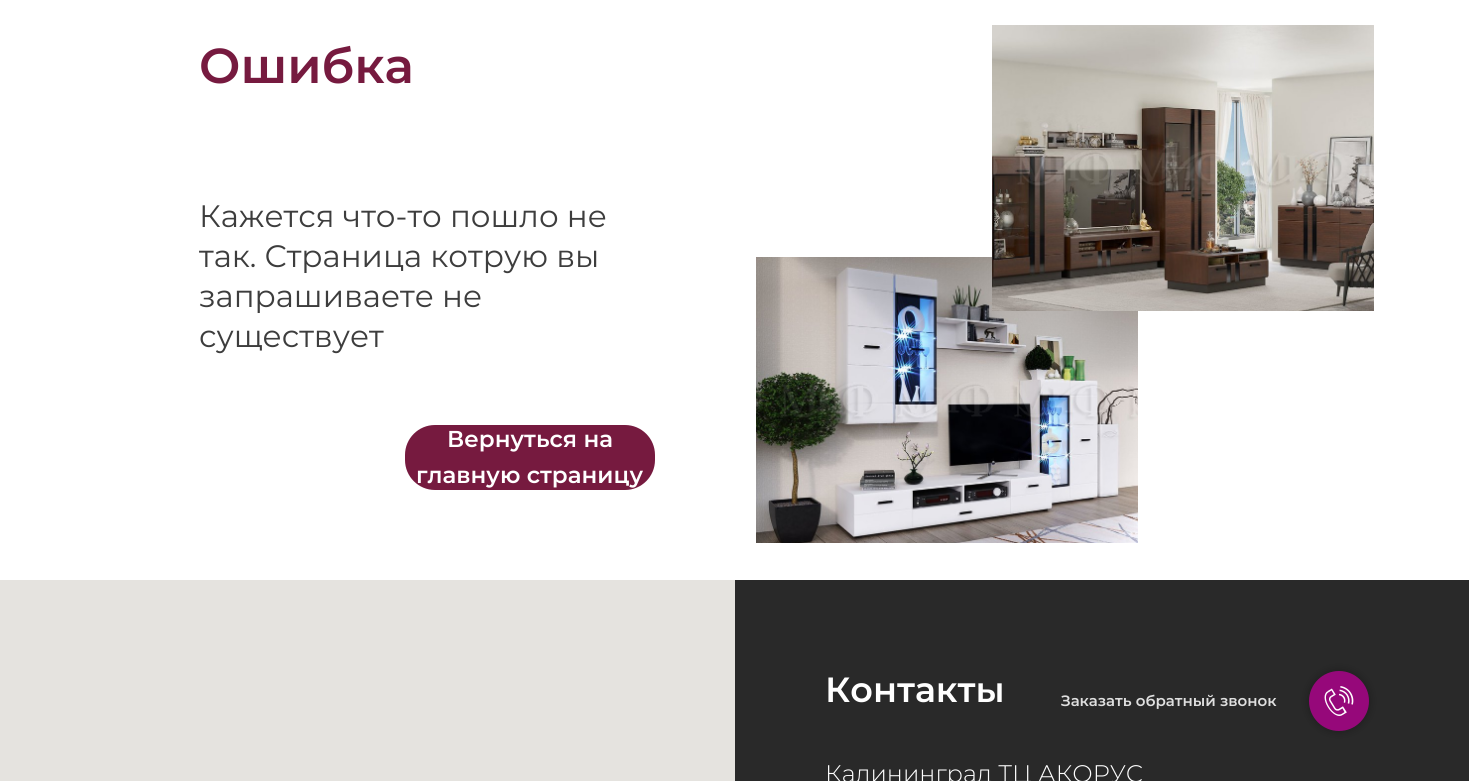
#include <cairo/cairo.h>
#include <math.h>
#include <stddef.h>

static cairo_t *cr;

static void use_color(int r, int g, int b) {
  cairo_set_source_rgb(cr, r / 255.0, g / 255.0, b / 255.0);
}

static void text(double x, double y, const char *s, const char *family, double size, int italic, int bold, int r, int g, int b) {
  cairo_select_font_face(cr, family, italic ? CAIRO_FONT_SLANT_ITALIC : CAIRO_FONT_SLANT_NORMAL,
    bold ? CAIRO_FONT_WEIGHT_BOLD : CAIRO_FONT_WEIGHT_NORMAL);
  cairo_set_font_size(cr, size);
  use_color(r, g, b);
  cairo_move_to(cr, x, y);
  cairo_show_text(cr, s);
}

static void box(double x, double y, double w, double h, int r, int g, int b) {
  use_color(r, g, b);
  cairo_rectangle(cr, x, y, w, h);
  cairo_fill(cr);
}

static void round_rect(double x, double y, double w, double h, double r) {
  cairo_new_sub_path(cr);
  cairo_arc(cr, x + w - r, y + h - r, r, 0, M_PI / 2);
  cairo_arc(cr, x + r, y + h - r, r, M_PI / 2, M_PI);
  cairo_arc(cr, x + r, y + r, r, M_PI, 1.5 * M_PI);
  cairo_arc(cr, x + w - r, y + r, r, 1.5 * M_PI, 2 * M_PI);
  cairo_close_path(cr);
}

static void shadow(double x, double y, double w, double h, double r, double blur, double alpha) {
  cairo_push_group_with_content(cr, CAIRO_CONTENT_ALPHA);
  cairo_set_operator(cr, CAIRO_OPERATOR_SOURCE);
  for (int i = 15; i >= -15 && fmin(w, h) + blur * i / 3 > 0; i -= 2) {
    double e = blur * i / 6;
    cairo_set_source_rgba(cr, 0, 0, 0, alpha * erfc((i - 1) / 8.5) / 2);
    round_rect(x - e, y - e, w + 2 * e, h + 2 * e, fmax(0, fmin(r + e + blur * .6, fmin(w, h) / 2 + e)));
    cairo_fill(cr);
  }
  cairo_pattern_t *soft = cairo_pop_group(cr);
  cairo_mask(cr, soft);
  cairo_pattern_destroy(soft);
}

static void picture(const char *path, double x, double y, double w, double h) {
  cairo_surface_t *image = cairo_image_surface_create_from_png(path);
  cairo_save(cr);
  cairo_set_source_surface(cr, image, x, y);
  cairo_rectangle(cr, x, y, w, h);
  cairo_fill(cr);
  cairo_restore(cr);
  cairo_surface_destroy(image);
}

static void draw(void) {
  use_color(255, 255, 255);
  cairo_paint(cr);
  picture("img_02.png", 756, 257, 382, 286);
  picture("img_01.png", 992, 25, 382, 286);
  use_color(118, 26, 63);
  round_rect(405, 425, 250, 65, 30);
  cairo_fill(cr);
  box(735, 580, 734, 201, 41, 41, 41);
  box(0, 580, 735, 201, 229, 227, 223);
  use_color(0, 0, 0);
  shadow(1309, 671, 60, 60, 30, 5, 0.3);
  use_color(150, 8, 122);
  cairo_arc(cr, 1339, 701, 30, 0, 2 * M_PI);
  cairo_fill(cr);
  picture("img_03.png", 1324, 686, 30, 30);
  text(199, 83, "Ошибка", "Montserrat SemiBold", 49, 0, 0, 118, 26, 63);
  text(199, 227, "Кажется что-то пошло не", "Montserrat", 31, 0, 0, 61, 61, 61);
  text(199, 267, "так. Страница котрую вы", "Montserrat", 31, 0, 0, 61, 61, 61);
  text(199, 307, "запрашиваете не", "Montserrat", 31, 0, 0, 61, 61, 61);
  text(199, 347, "существует", "Montserrat", 31, 0, 0, 61, 61, 61);
  text(447, 447, "Вернуться на", "Montserrat SemiBold", 23, 0, 0, 255, 255, 255);
  text(416, 483, "главную страницу", "Montserrat SemiBold", 23, 0, 0, 255, 255, 255);
  text(825, 702, "Контакты", "Montserrat SemiBold", 35, 0, 0, 255, 255, 255);
  text(825, 782, "Калининград ТЦ АКОРУС", "Montserrat Light", 24, 0, 0, 255, 255, 255);
  text(1061, 706, "Заказать обратный звонок", "Montserrat SemiBold", 15, 0, 0, 223, 223, 223);
}

int main(void) {
  cairo_surface_t *surface = cairo_image_surface_create(CAIRO_FORMAT_RGB24, 1469, 781);
  cr = cairo_create(surface);
  cairo_font_options_t *options = cairo_font_options_create();
  cairo_font_options_set_hint_metrics(options, CAIRO_HINT_METRICS_OFF);
  cairo_font_options_set_hint_style(options, CAIRO_HINT_STYLE_NONE);
  cairo_set_font_options(cr, options);
  cairo_set_miter_limit(cr, 4);
  draw();
  cairo_surface_write_to_png(surface, "out.png");
  cairo_font_options_destroy(options);
  cairo_destroy(cr);
  cairo_surface_destroy(surface);
  return 0;
}
